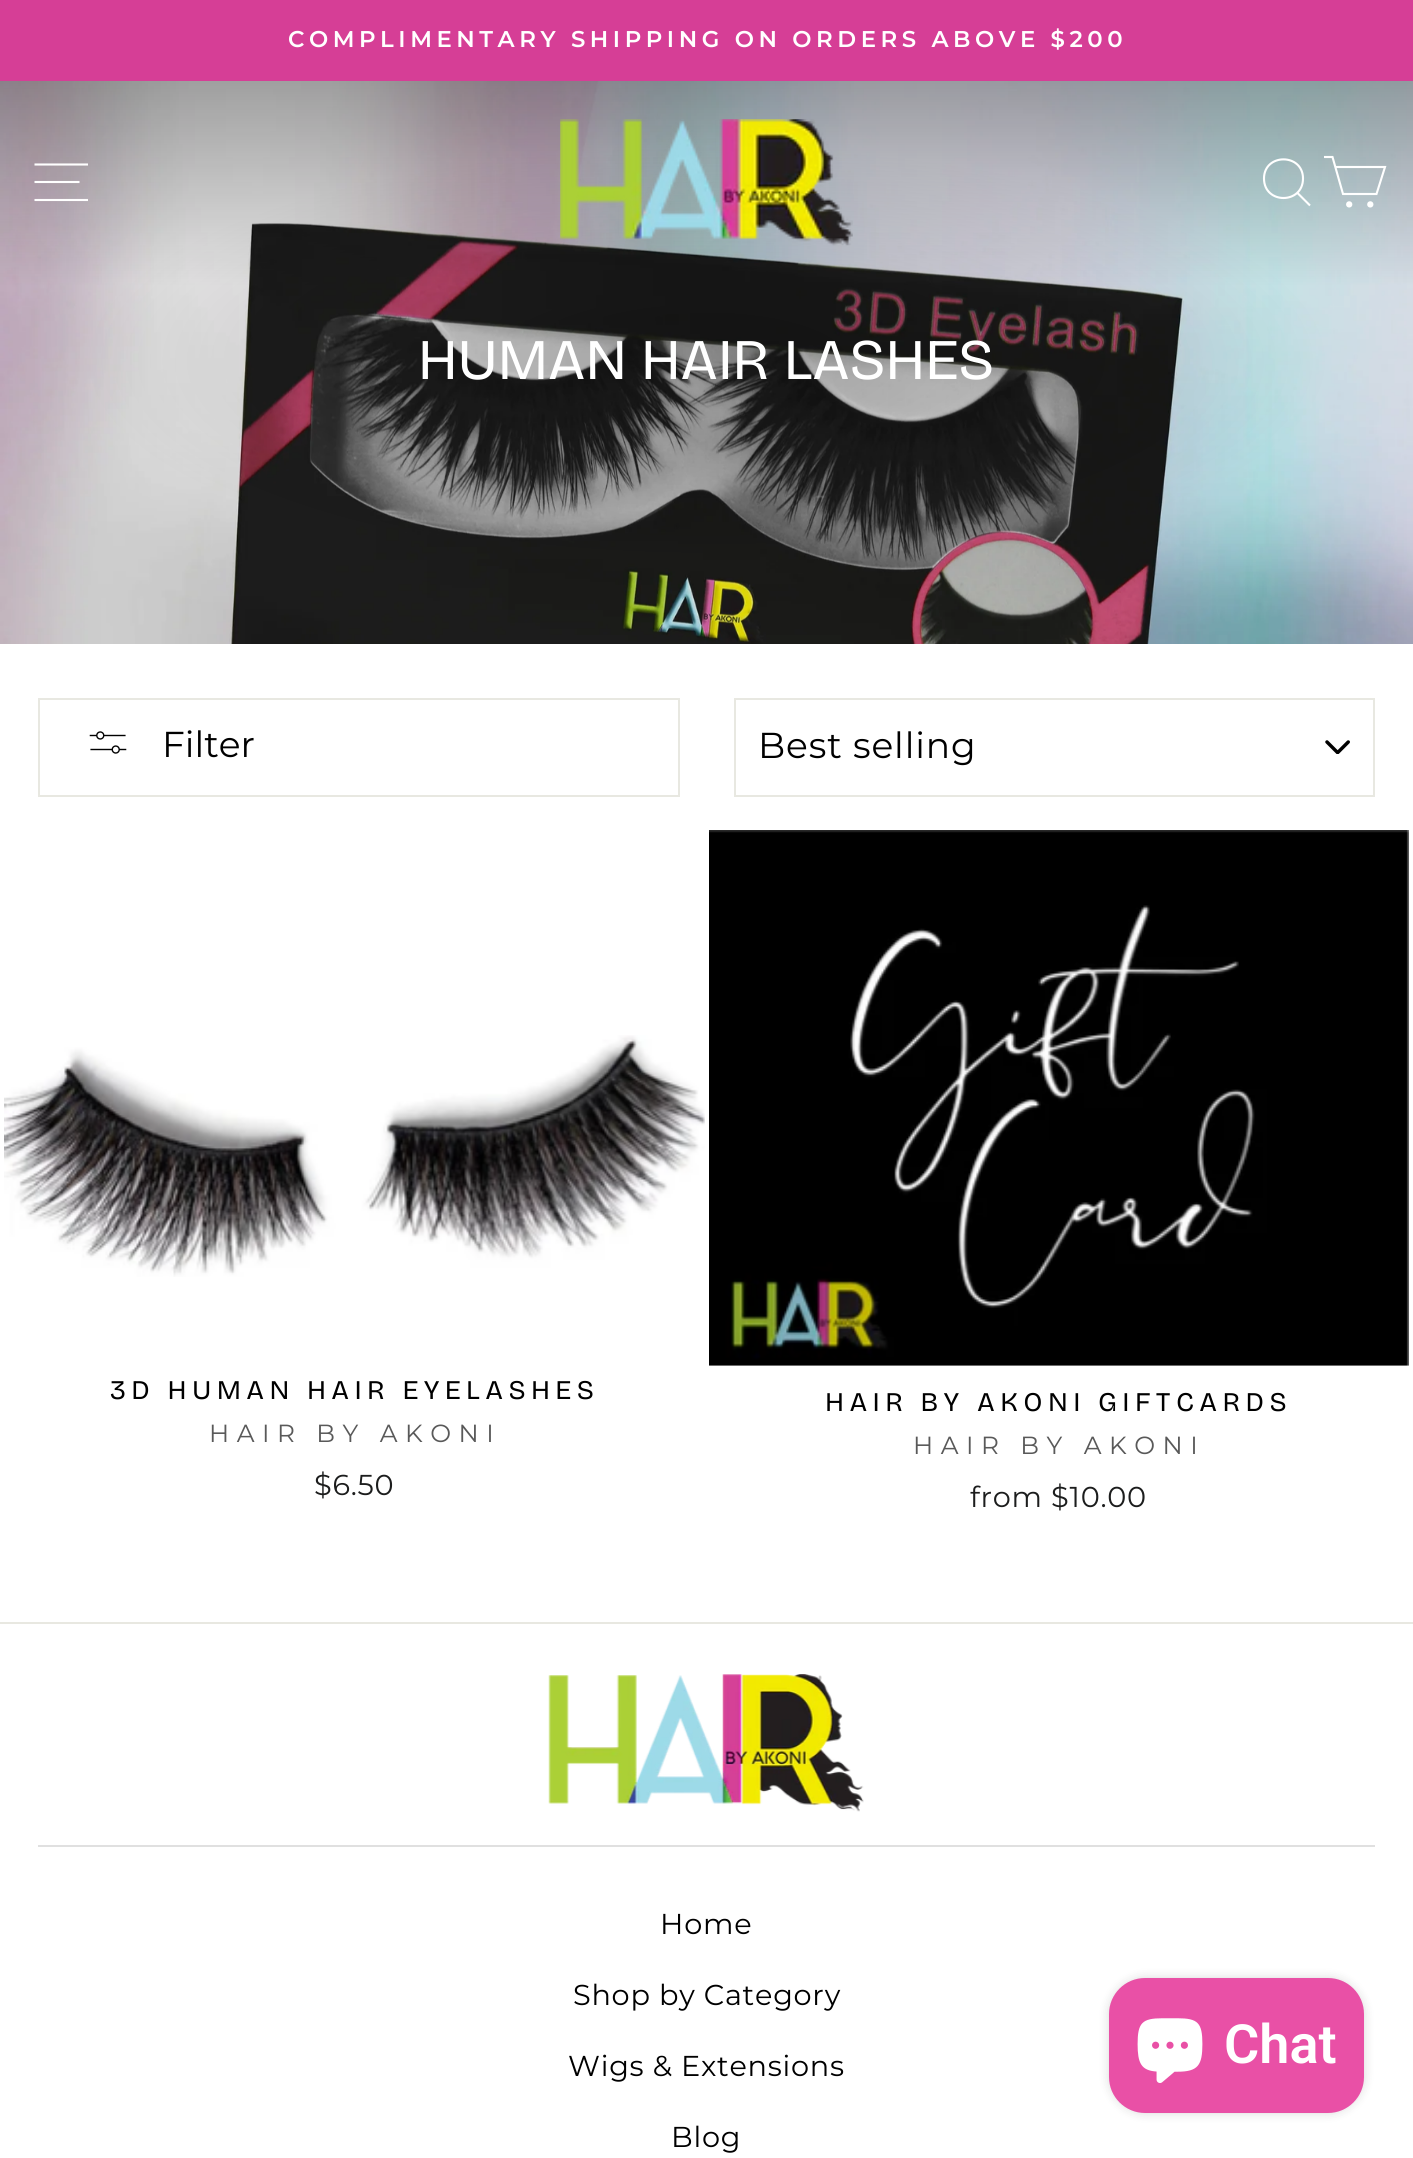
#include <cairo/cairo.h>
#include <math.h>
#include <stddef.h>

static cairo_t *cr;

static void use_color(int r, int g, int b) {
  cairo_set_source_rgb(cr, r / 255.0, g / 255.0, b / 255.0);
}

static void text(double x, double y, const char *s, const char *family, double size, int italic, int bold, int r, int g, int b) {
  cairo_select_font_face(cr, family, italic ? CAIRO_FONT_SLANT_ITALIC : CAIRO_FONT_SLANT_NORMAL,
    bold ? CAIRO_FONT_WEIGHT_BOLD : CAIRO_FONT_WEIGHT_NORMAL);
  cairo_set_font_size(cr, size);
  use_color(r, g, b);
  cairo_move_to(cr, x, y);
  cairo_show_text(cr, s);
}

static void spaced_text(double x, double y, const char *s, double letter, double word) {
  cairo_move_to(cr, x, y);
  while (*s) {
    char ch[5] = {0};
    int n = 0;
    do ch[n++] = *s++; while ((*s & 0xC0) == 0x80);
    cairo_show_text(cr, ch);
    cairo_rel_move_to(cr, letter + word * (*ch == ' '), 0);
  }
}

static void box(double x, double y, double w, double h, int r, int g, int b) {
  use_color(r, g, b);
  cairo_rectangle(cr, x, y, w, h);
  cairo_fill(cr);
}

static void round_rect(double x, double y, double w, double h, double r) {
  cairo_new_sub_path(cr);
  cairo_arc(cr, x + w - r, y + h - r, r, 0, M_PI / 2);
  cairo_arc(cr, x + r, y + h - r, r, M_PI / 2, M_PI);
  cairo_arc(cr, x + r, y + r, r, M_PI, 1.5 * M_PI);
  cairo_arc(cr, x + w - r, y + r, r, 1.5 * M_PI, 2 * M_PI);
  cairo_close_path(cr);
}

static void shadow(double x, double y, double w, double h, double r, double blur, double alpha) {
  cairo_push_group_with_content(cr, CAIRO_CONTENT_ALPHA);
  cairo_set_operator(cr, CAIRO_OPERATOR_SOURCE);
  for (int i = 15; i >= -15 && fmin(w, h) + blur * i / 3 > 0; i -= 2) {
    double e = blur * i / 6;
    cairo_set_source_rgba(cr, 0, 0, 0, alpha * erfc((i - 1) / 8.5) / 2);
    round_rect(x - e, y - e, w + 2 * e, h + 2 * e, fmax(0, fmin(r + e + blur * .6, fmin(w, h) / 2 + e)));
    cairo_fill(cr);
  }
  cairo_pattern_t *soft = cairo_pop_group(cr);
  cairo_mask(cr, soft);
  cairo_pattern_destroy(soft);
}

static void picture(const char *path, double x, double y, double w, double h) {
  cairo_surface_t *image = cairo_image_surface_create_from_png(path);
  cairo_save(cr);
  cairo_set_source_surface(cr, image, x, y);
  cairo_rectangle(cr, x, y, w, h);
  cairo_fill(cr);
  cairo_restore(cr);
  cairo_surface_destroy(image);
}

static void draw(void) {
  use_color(255, 255, 255);
  cairo_paint(cr);
  box(0, 0, 1413, 81, 214, 62, 150);
  picture("img_02.png", 0, 81, 1413, 563);
  cairo_new_path(cr);
  cairo_move_to(cr, 34.5, 164.5);
  cairo_line_to(cr, 88, 164.5);
  cairo_move_to(cr, 34.5, 182);
  cairo_line_to(cr, 79.5, 182);
  cairo_move_to(cr, 34.5, 200);
  cairo_line_to(cr, 88, 200);
  use_color(255, 255, 255);
  cairo_set_line_width(cr, 2.1);
  cairo_stroke(cr);
  picture("img_01.png", 560, 119, 293, 127);
  cairo_new_path(cr);
  cairo_move_to(cr, 1303, 178.5);
  cairo_curve_to(cr, 1303, 204.5, 1264, 204.5, 1264, 178.5);
  cairo_curve_to(cr, 1264, 153, 1303, 153, 1303, 178.5);
  cairo_close_path(cr);
  cairo_move_to(cr, 1310, 205.5);
  cairo_line_to(cr, 1297.5, 193);
  cairo_stroke(cr);
  cairo_new_path(cr);
  cairo_move_to(cr, 1335.5, 167);
  cairo_line_to(cr, 1385, 167);
  cairo_line_to(cr, 1376.5, 194);
  cairo_line_to(cr, 1343, 194);
  cairo_line_to(cr, 1332.5, 157);
  cairo_line_to(cr, 1324, 157);
  cairo_stroke(cr);
  cairo_arc(cr, 1349.2, 204.4, 2.1, 0, 2 * M_PI);
  cairo_fill_preserve(cr);
  cairo_stroke(cr);
  cairo_arc(cr, 1370.3, 204.4, 2.1, 0, 2 * M_PI);
  cairo_fill_preserve(cr);
  cairo_stroke(cr);
  cairo_rectangle(cr, 39, 699, 640, 97);
  use_color(232, 232, 225);
  cairo_set_line_width(cr, 2);
  cairo_stroke(cr);
  picture("img_03.png", 89, 731, 38, 23);
  picture("img_04.png", 1325, 740, 25, 14);
  cairo_rectangle(cr, 735, 699, 639, 97);
  cairo_stroke(cr);
  picture("img_05.png", 4, 1035, 701, 242);
  picture("img_06.png", 709, 830, 700, 536);
  box(0, 1622, 1413, 2, 232, 232, 225);
  picture("img_07.png", 548, 1674, 316, 138);
  box(38, 1845, 1337, 2, 224, 224, 224);
  use_color(0, 0, 0);
  shadow(1109, 1978, 255, 135, 36, 5.5, 0.15);
  use_color(233, 80, 166);
  round_rect(1109, 1978, 255, 135, 36);
  cairo_fill(cr);
  picture("img_08.png", 1137, 2018, 66, 65);
  cairo_select_font_face(cr, "Montserrat SemiBold", CAIRO_FONT_SLANT_NORMAL, CAIRO_FONT_WEIGHT_NORMAL);
  cairo_set_font_size(cr, 22.8);
  use_color(255, 255, 255);
  spaced_text(288, 47, "COMPLIMENTARY SHIPPING ON ORDERS ABOVE $200", 4.55, 0);
  text(418, 379, "HUMAN HAIR LASHES", "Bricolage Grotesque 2", 57.4, 0, 0, 255, 255, 255);
  text(162, 757, "Filter", "Montserrat", 36, 0, 0, 0, 0, 0);
  spaced_text(758, 758, "Best selling", 0.9, 0);
  cairo_select_font_face(cr, "Bricolage Grotesque", CAIRO_FONT_SLANT_NORMAL, CAIRO_FONT_WEIGHT_NORMAL);
  cairo_set_font_size(cr, 27);
  spaced_text(110, 1399, "3D HUMAN HAIR EYELASHES", 5.4, 0);
  cairo_select_font_face(cr, "Montserrat", CAIRO_FONT_SLANT_NORMAL, CAIRO_FONT_WEIGHT_NORMAL);
  cairo_set_font_size(cr, 24.8);
  use_color(89, 89, 89);
  spaced_text(209, 1442, "HAIR BY AKONI", 7.5, 0);
  cairo_set_font_size(cr, 28.75);
  use_color(28, 29, 29);
  spaced_text(314, 1495, "$6.50", 0.75, 0);
  cairo_select_font_face(cr, "Bricolage Grotesque", CAIRO_FONT_SLANT_NORMAL, CAIRO_FONT_WEIGHT_NORMAL);
  cairo_set_font_size(cr, 27);
  use_color(0, 0, 0);
  spaced_text(825, 1411, "HAIR BY AKONI GIFTCARDS", 5.4, 0);
  cairo_select_font_face(cr, "Montserrat", CAIRO_FONT_SLANT_NORMAL, CAIRO_FONT_WEIGHT_NORMAL);
  cairo_set_font_size(cr, 24.8);
  use_color(89, 89, 89);
  spaced_text(913, 1454, "HAIR BY AKONI", 7.5, 0);
  cairo_set_font_size(cr, 28.75);
  use_color(28, 29, 29);
  spaced_text(970, 1507, "from $10.00", 0.75, 0);
  use_color(0, 0, 0);
  spaced_text(660, 1934, "Home", 0.75, 0);
  spaced_text(573, 2005, "Shop by Category", 0.75, 0);
  spaced_text(568, 2076, "Wigs & Extensions", 0.75, 0);
  spaced_text(671, 2147, "Blog", 0.75, 0);
  text(1224, 2063, "Chat", "Roboto SemiBold", 54, 0, 0, 255, 255, 255);
}

int main(void) {
  cairo_surface_t *surface = cairo_image_surface_create(CAIRO_FORMAT_RGB24, 1413, 2158);
  cr = cairo_create(surface);
  cairo_font_options_t *options = cairo_font_options_create();
  cairo_font_options_set_hint_metrics(options, CAIRO_HINT_METRICS_OFF);
  cairo_font_options_set_hint_style(options, CAIRO_HINT_STYLE_NONE);
  cairo_set_font_options(cr, options);
  cairo_set_miter_limit(cr, 4);
  draw();
  cairo_surface_write_to_png(surface, "out.png");
  cairo_font_options_destroy(options);
  cairo_destroy(cr);
  cairo_surface_destroy(surface);
  return 0;
}
